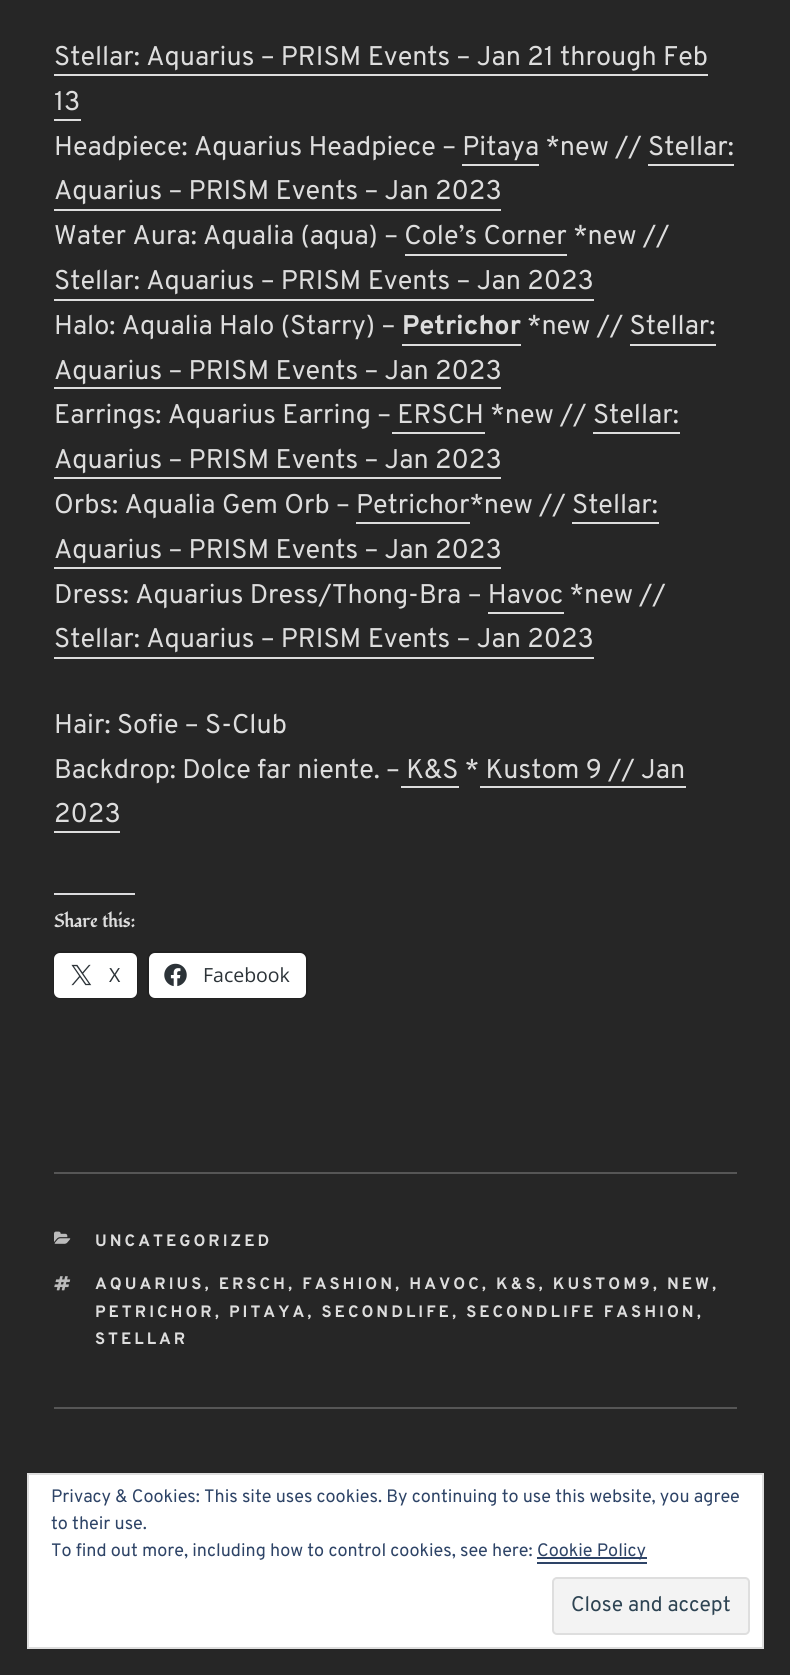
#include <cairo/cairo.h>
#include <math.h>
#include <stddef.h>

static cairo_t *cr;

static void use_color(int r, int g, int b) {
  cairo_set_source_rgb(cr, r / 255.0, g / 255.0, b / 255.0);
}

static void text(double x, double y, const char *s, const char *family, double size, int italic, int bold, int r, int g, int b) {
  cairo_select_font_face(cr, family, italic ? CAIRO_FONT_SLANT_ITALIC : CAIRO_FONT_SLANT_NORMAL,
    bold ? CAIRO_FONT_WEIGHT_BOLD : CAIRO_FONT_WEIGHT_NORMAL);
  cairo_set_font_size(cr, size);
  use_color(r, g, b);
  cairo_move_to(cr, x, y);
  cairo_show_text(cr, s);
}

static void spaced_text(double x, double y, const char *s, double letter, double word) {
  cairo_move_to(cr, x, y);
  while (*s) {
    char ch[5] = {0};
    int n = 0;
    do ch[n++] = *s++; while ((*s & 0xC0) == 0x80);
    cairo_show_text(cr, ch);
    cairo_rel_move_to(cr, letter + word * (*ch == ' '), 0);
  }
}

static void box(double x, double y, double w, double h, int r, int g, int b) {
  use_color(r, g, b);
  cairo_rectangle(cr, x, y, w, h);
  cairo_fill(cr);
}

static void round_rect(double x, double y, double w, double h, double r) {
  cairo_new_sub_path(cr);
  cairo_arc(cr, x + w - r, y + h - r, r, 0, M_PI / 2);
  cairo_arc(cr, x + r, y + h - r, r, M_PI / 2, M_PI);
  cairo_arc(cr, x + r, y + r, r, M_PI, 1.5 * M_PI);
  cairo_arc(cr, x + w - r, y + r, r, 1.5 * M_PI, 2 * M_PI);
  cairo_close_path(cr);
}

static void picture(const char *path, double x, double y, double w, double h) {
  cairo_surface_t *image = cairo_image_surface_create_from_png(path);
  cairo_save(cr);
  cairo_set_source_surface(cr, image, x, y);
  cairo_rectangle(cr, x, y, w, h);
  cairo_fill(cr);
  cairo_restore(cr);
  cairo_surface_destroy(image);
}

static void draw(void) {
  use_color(38, 38, 38);
  cairo_paint(cr);
  box(54, 74, 654, 2, 221, 221, 221);
  box(54, 119, 27, 2, 221, 221, 221);
  box(462, 164, 77, 2, 221, 221, 221);
  box(648, 164, 86, 2, 221, 221, 221);
  box(54, 209, 447, 2, 221, 221, 221);
  box(405, 254, 162, 2, 221, 221, 221);
  box(54, 299, 540, 2, 221, 221, 221);
  box(402, 344, 119, 2, 221, 221, 221);
  box(630, 344, 86, 2, 221, 221, 221);
  box(54, 387, 447, 2, 221, 221, 221);
  box(392, 432, 93, 2, 221, 221, 221);
  box(593, 432, 87, 2, 221, 221, 221);
  box(54, 477, 447, 2, 221, 221, 221);
  box(356, 522, 114, 2, 221, 221, 221);
  box(572, 522, 87, 2, 221, 221, 221);
  box(54, 567, 447, 2, 221, 221, 221);
  box(488, 612, 76, 2, 221, 221, 221);
  box(54, 657, 540, 2, 221, 221, 221);
  box(401, 786, 58, 2, 221, 221, 221);
  box(480, 786, 206, 2, 221, 221, 221);
  box(54, 831, 66, 2, 221, 221, 221);
  box(54, 893, 81, 2, 220, 220, 222);
  round_rect(54, 952, 83, 46, 7);
  use_color(33, 33, 33);
  cairo_stroke(cr);
  use_color(255, 255, 255);
  round_rect(54, 953, 83, 45, 6);
  cairo_fill(cr);
  picture("img_01.png", 71, 964, 21, 22);
  round_rect(148, 952, 159, 46, 7);
  use_color(33, 33, 33);
  cairo_stroke(cr);
  use_color(255, 255, 255);
  round_rect(149, 953, 157, 45, 6);
  cairo_fill(cr);
  picture("img_02.png", 164, 963, 23, 24);
  box(54, 1172, 683, 2, 86, 86, 86);
  box(54, 1407, 683, 2, 86, 86, 86);
  picture("img_03.png", 54, 1231, 17, 13);
  picture("img_04.png", 54, 1276, 17, 15);
  use_color(255, 255, 255);
  cairo_rectangle(cr, 28, 1474, 735, 174);
  cairo_fill_preserve(cr);
  use_color(222, 222, 222);
  cairo_stroke(cr);
  box(537, 1562, 110, 2, 46, 68, 103);
  box(537, 1557, 110, 2, 46, 68, 103);
  use_color(243, 243, 243);
  round_rect(553, 1578, 196, 56, 4);
  cairo_fill_preserve(cr);
  use_color(222, 222, 222);
  cairo_stroke(cr);
  text(54, 65, "Stellar: Aquarius – PRISM Events – Jan 21 through Feb", "Overpass", 27, 0, 0, 221, 221, 221);
  text(54, 110, "13", "Overpass", 27, 0, 0, 221, 221, 221);
  text(54, 155, "Headpiece: Aquarius Headpiece – Pitaya *new // Stellar:", "Overpass", 27, 0, 0, 221, 221, 221);
  text(54, 199, "Aquarius – PRISM Events – Jan 2023", "Overpass", 27, 0, 0, 221, 221, 221);
  text(54, 244, "Water Aura: Aqualia (aqua) – Cole’s Corner *new //", "Overpass", 27, 0, 0, 221, 221, 221);
  text(54, 289, "Stellar: Aquarius – PRISM Events – Jan 2023", "Overpass", 27, 0, 0, 221, 221, 221);
  text(54, 334, "Halo: Aqualia Halo (Starry) –", "Overpass", 27, 0, 0, 221, 221, 221);
  text(402, 334, "Petrichor", "Overpass", 27, 0, 1, 221, 221, 221);
  text(527, 334, "*new // Stellar:", "Overpass", 27, 0, 0, 221, 221, 221);
  text(54, 379, "Aquarius – PRISM Events – Jan 2023", "Overpass", 27, 0, 0, 221, 221, 221);
  text(54, 423, "Earrings: Aquarius Earring – ERSCH *new // Stellar:", "Overpass", 27, 0, 0, 221, 221, 221);
  text(54, 468, "Aquarius – PRISM Events – Jan 2023", "Overpass", 27, 0, 0, 221, 221, 221);
  text(54, 513, "Orbs: Aqualia Gem Orb – Petrichor*new // Stellar:", "Overpass", 27, 0, 0, 221, 221, 221);
  text(54, 558, "Aquarius – PRISM Events – Jan 2023", "Overpass", 27, 0, 0, 221, 221, 221);
  text(54, 603, "Dress: Aquarius Dress/Thong-Bra – Havoc *new //", "Overpass", 27, 0, 0, 221, 221, 221);
  text(54, 647, "Stellar: Aquarius – PRISM Events – Jan 2023", "Overpass", 27, 0, 0, 221, 221, 221);
  text(54, 733, "Hair: Sofie – S-Club", "Overpass", 27, 0, 0, 221, 221, 221);
  text(54, 778, "Backdrop: Dolce far niente. – K&S * Kustom 9 // Jan", "Overpass", 27, 0, 0, 221, 221, 221);
  text(54, 822, "2023", "Overpass", 27, 0, 0, 221, 221, 221);
  text(54, 927, "Share this:", "Fondamento", 18, 0, 1, 221, 221, 221);
  text(109, 982, "X", "Open Sans", 19.5, 0, 0, 44, 51, 56);
  text(203, 982, "Facebook", "Open Sans", 19.5, 0, 0, 44, 51, 56);
  cairo_select_font_face(cr, "Overpass", CAIRO_FONT_SLANT_NORMAL, CAIRO_FONT_WEIGHT_BOLD);
  cairo_set_font_size(cr, 16.5);
  use_color(221, 221, 221);
  spaced_text(95, 1246, "UNCATEGORIZED", 3, 0);
  spaced_text(95, 1289, "AQUARIUS, ERSCH, FASHION, HAVOC, K&S, KUSTOM9, NEW,", 3, 0);
  spaced_text(95, 1317, "PETRICHOR, PITAYA, SECONDLIFE, SECONDLIFE FASHION,", 3, 0);
  spaced_text(95, 1344, "STELLAR", 3, 0);
  text(51, 1502, "Privacy & Cookies: This site uses cookies. By continuing to use this website, you agree", "Overpass", 18, 0, 0, 46, 68, 103);
  text(51, 1529, "to their use.", "Overpass", 18, 0, 0, 46, 68, 103);
  text(51, 1556, "To find out more, including how to control cookies, see here:", "Overpass", 18, 0, 0, 46, 68, 103);
  text(537, 1556, "Cookie Policy", "Overpass", 18, 0, 0, 46, 68, 103);
  text(571, 1611, "Close and accept", "Overpass", 21, 0, 0, 46, 68, 83);
}

int main(void) {
  cairo_surface_t *surface = cairo_image_surface_create(CAIRO_FORMAT_RGB24, 790, 1675);
  cr = cairo_create(surface);
  cairo_font_options_t *options = cairo_font_options_create();
  cairo_font_options_set_hint_metrics(options, CAIRO_HINT_METRICS_OFF);
  cairo_font_options_set_hint_style(options, CAIRO_HINT_STYLE_NONE);
  cairo_set_font_options(cr, options);
  cairo_set_miter_limit(cr, 4);
  draw();
  cairo_surface_write_to_png(surface, "out.png");
  cairo_font_options_destroy(options);
  cairo_destroy(cr);
  cairo_surface_destroy(surface);
  return 0;
}
